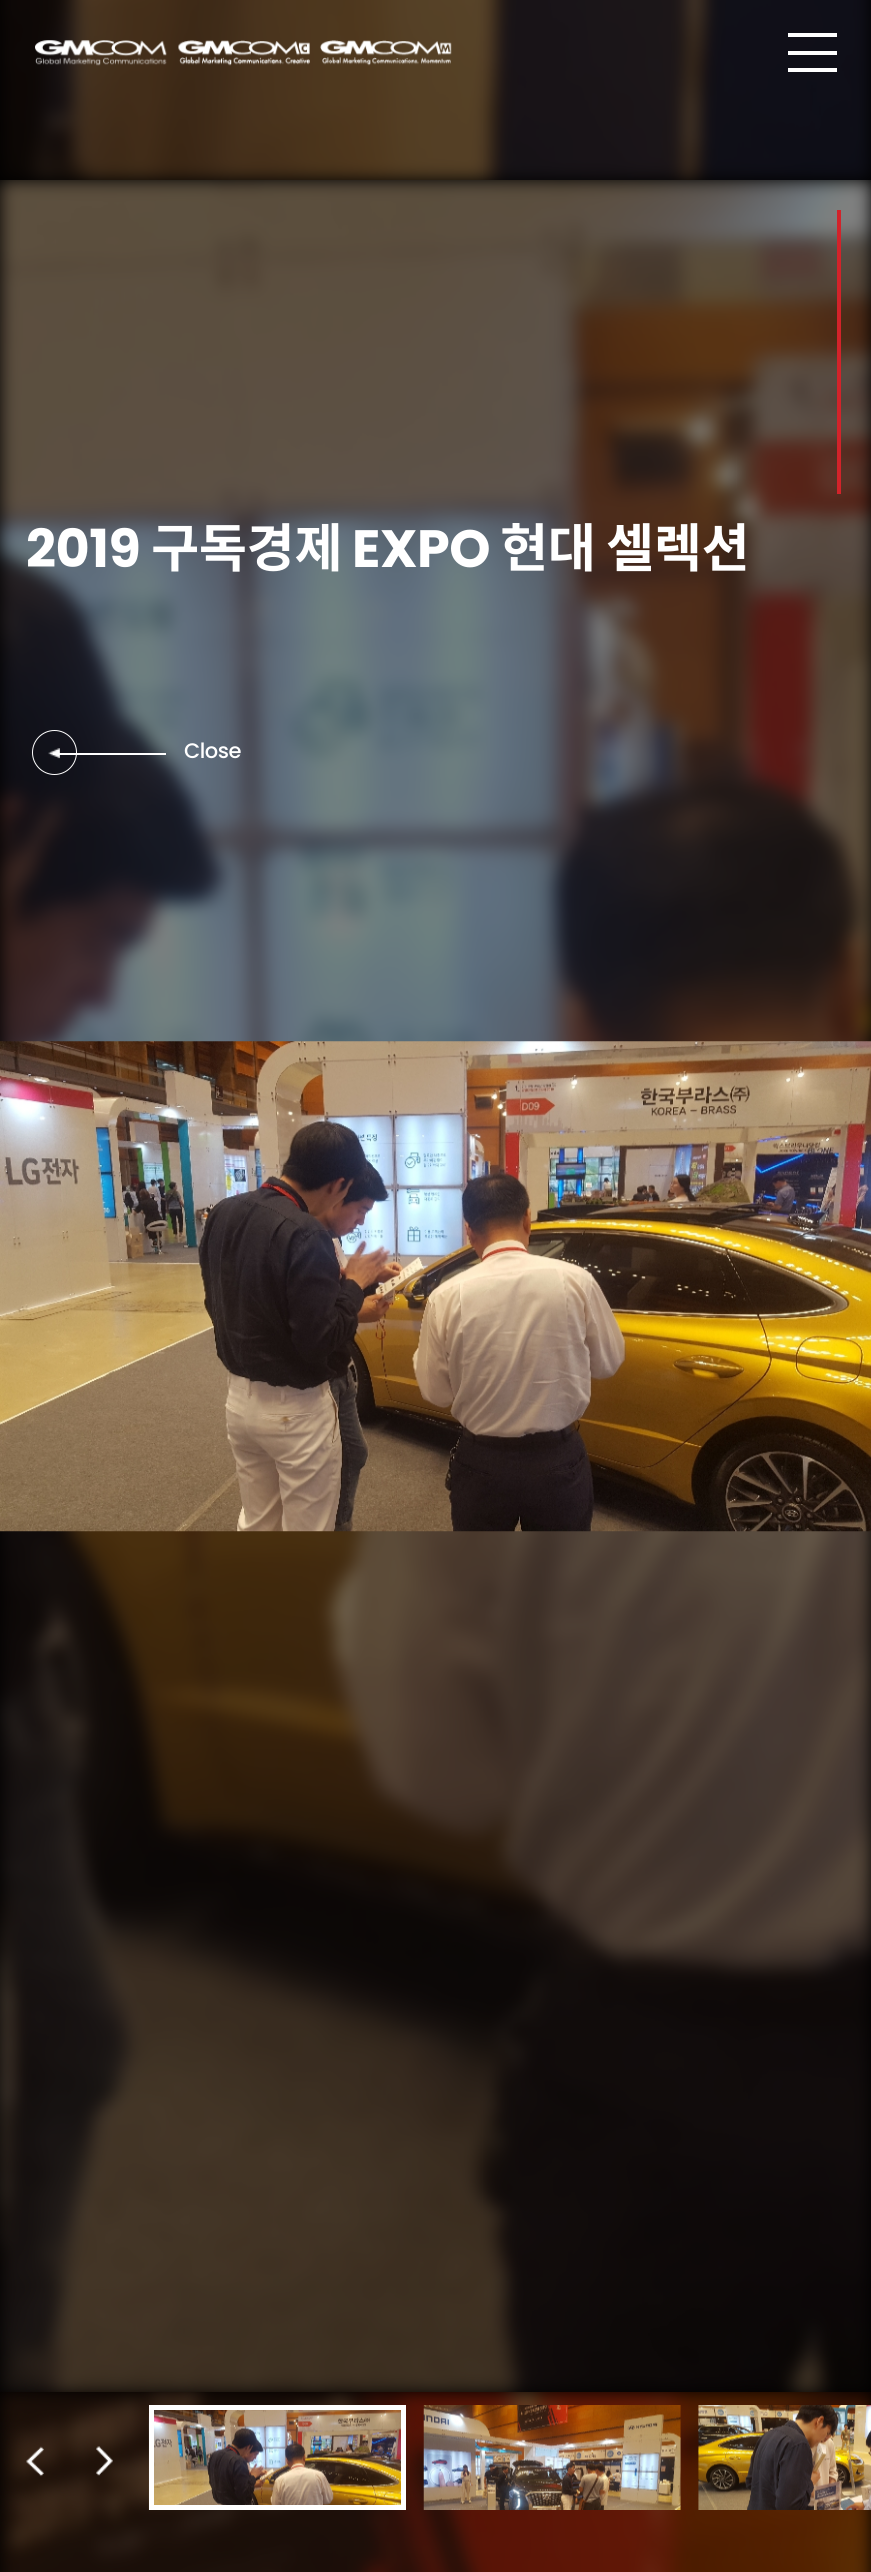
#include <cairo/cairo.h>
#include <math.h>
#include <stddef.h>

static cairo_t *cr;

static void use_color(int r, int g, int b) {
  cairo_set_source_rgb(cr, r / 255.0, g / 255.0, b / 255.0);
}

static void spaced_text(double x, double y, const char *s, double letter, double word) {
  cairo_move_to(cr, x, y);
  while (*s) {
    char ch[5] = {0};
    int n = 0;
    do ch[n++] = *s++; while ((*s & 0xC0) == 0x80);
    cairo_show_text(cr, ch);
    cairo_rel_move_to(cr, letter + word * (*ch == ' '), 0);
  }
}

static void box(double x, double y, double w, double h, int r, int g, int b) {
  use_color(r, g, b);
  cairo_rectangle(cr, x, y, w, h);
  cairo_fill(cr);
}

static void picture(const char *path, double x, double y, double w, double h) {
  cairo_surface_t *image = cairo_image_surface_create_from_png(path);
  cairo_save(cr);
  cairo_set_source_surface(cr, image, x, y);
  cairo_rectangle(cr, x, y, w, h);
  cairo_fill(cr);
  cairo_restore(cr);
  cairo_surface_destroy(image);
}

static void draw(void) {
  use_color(0, 0, 0);
  cairo_paint(cr);
  picture("img_02.png", 0, 0, 871, 180);
  picture("img_01.png", 35, 40, 417, 26);
  box(788, 33, 49, 4, 255, 255, 255);
  box(788, 51, 49, 4, 255, 255, 255);
  box(788, 68, 49, 4, 255, 255, 255);
  picture("img_03.png", 0, 180, 871, 2212);
  picture("img_04.png", 0, 1041, 871, 491);
  picture("img_05.png", 0, 2392, 871, 180);
  box(837, 210, 4, 284, 210, 35, 42);
  picture("img_06.png", 26, 2446, 18, 31);
  picture("img_07.png", 96, 2446, 17, 30);
  picture("img_08.png", 148, 2405, 253, 105);
  cairo_rectangle(cr, 151.5, 2407.5, 252, 100);
  use_color(255, 255, 255);
  cairo_set_line_width(cr, 5);
  cairo_stroke(cr);
  picture("img_09.png", 423, 2405, 258, 105);
  picture("img_10.png", 698, 2405, 173, 105);
  picture("img_11.png", 48, 748, 12, 11);
  cairo_arc(cr, 54.5, 752.5, 22, 0, 2 * M_PI);
  cairo_set_line_width(cr, 1);
  cairo_stroke(cr);
  box(53, 753, 113, 2, 255, 255, 255);
  cairo_select_font_face(cr, "Poppins", CAIRO_FONT_SLANT_NORMAL, CAIRO_FONT_WEIGHT_BOLD);
  cairo_set_font_size(cr, 52.5);
  spaced_text(26, 567, "2019", -0.5, 0);
  cairo_select_font_face(cr, "Noto Sans KR", CAIRO_FONT_SLANT_NORMAL, CAIRO_FONT_WEIGHT_BOLD);
  spaced_text(151, 567, "구독경제", -0.5, 0);
  cairo_select_font_face(cr, "Poppins", CAIRO_FONT_SLANT_NORMAL, CAIRO_FONT_WEIGHT_BOLD);
  spaced_text(352, 567, "EXPO", -0.5, 0);
  cairo_select_font_face(cr, "Noto Sans KR", CAIRO_FONT_SLANT_NORMAL, CAIRO_FONT_WEIGHT_BOLD);
  spaced_text(500, 567, "현대 셀렉션", -0.5, -1);
  cairo_select_font_face(cr, "Poppins Medium", CAIRO_FONT_SLANT_NORMAL, CAIRO_FONT_WEIGHT_NORMAL);
  cairo_set_font_size(cr, 21);
  spaced_text(184, 758, "Close", -0.5, 0);
}

int main(void) {
  cairo_surface_t *surface = cairo_image_surface_create(CAIRO_FORMAT_RGB24, 871, 2572);
  cr = cairo_create(surface);
  cairo_font_options_t *options = cairo_font_options_create();
  cairo_font_options_set_hint_metrics(options, CAIRO_HINT_METRICS_OFF);
  cairo_font_options_set_hint_style(options, CAIRO_HINT_STYLE_NONE);
  cairo_set_font_options(cr, options);
  cairo_set_miter_limit(cr, 4);
  draw();
  cairo_surface_write_to_png(surface, "out.png");
  cairo_font_options_destroy(options);
  cairo_destroy(cr);
  cairo_surface_destroy(surface);
  return 0;
}
